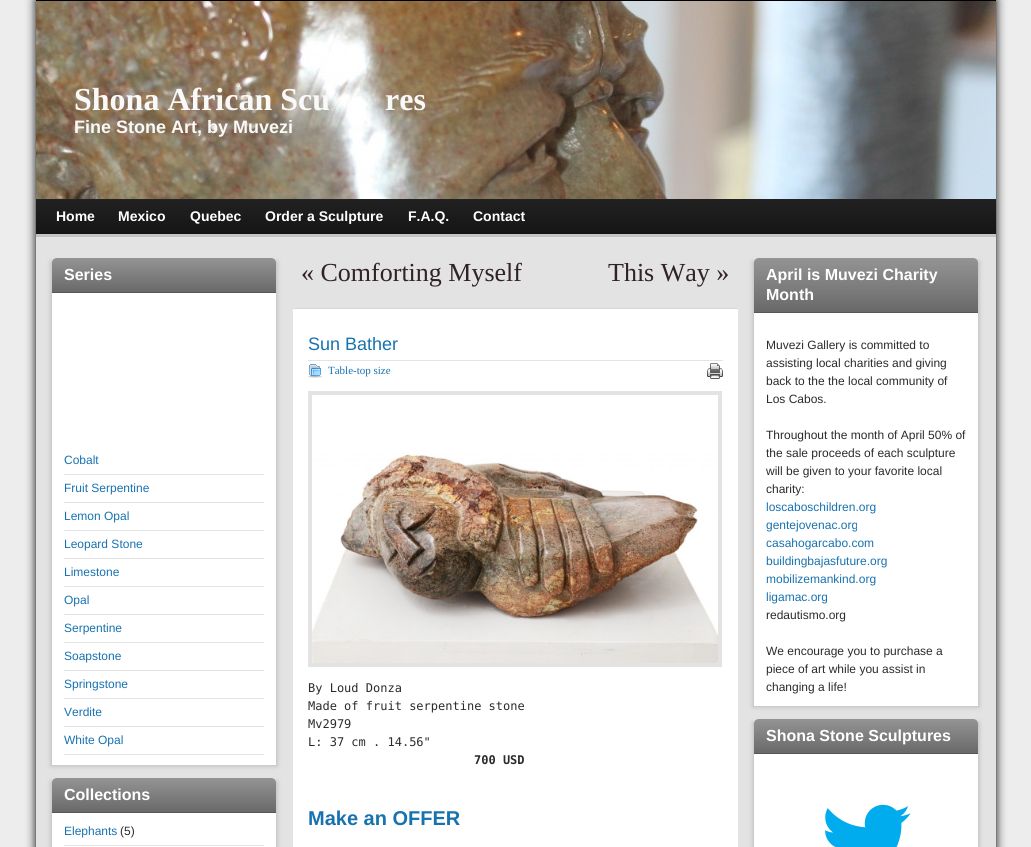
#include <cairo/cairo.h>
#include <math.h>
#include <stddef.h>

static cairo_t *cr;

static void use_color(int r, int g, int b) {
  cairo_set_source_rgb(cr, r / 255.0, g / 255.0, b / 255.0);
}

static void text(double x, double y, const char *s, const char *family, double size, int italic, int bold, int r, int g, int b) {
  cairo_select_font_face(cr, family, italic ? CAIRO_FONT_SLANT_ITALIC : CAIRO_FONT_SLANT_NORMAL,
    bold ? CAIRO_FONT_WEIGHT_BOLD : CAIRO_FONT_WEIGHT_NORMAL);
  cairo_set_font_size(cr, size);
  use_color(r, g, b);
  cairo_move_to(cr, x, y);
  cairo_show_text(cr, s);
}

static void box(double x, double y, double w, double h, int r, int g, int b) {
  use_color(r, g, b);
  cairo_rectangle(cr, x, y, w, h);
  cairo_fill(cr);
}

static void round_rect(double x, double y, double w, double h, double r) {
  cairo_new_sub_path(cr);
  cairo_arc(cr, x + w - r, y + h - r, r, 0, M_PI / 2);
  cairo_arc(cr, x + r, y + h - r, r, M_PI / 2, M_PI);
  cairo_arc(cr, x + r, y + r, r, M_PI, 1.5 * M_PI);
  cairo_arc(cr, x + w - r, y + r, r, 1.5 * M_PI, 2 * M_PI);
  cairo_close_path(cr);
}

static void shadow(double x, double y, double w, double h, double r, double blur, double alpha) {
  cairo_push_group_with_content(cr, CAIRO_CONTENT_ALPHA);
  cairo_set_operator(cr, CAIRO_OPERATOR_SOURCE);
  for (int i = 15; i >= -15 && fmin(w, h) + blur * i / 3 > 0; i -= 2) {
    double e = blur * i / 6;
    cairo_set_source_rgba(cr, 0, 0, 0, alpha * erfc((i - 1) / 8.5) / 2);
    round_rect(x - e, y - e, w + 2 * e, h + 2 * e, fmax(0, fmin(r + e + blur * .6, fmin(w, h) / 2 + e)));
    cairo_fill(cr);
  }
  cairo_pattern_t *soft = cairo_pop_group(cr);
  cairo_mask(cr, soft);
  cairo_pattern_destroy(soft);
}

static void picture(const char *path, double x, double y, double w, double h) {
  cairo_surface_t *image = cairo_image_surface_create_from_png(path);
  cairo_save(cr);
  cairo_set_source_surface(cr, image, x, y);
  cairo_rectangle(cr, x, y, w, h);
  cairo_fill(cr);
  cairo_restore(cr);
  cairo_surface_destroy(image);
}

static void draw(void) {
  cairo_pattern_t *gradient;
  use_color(237, 237, 237);
  cairo_paint(cr);
  use_color(0, 0, 0);
  shadow(36, 0, 960, 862, 0, 5, 1);
  picture("img_01.png", 36, 1, 960, 198);
  box(36, 0, 960, 1, 0, 0, 0);
  picture("img_02.png", 36, 199, 960, 35);
  box(36, 234, 960, 3, 195, 195, 195);
  box(36, 237, 960, 610, 227, 227, 227);
  use_color(187, 187, 187);
  shadow(51, 262, 226, 504, 0, 2.5, 1);
  box(52, 293, 224, 472, 255, 255, 255);
  cairo_rectangle(cr, 51.5, 262.5, 225, 503);
  use_color(204, 204, 204);
  cairo_set_line_width(cr, 1);
  cairo_stroke(cr);
  gradient = cairo_pattern_create_linear(164, 258, 164, 292);
  cairo_pattern_add_color_stop_rgba(gradient, 0, 0.58, 0.58, 0.58, 1);
  cairo_pattern_add_color_stop_rgba(gradient, 1, 0.412, 0.412, 0.412, 1);
  cairo_set_source(cr, gradient);
  cairo_pattern_destroy(gradient);
  cairo_new_path(cr);
  cairo_move_to(cr, 57, 258);
  cairo_line_to(cr, 271, 258);
  cairo_curve_to(cr, 274, 258, 276, 260, 276, 263);
  cairo_line_to(cr, 276, 292);
  cairo_line_to(cr, 52, 292);
  cairo_line_to(cr, 52, 263);
  cairo_curve_to(cr, 52, 260, 54, 258, 57, 258);
  cairo_close_path(cr);
  cairo_fill(cr);
  box(52, 292, 224, 1, 87, 87, 87);
  box(64, 474, 200, 1, 227, 227, 227);
  box(64, 502, 200, 1, 227, 227, 227);
  box(64, 530, 200, 1, 227, 227, 227);
  box(64, 558, 200, 1, 227, 227, 227);
  box(64, 586, 200, 1, 227, 227, 227);
  box(64, 614, 200, 1, 227, 227, 227);
  box(64, 642, 200, 1, 227, 227, 227);
  box(64, 670, 200, 1, 227, 227, 227);
  box(64, 698, 200, 1, 227, 227, 227);
  box(64, 726, 200, 1, 227, 227, 227);
  box(64, 754, 200, 1, 227, 227, 227);
  use_color(187, 187, 187);
  shadow(51, 782, 226, 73, 0, 2.5, 1);
  box(52, 813, 224, 34, 255, 255, 255);
  cairo_rectangle(cr, 51.5, 782.5, 225, 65);
  use_color(204, 204, 204);
  cairo_stroke(cr);
  gradient = cairo_pattern_create_linear(164, 778, 164, 812);
  cairo_pattern_add_color_stop_rgba(gradient, 0, 0.58, 0.58, 0.58, 1);
  cairo_pattern_add_color_stop_rgba(gradient, 1, 0.412, 0.412, 0.412, 1);
  cairo_set_source(cr, gradient);
  cairo_pattern_destroy(gradient);
  cairo_new_path(cr);
  cairo_move_to(cr, 57, 778);
  cairo_line_to(cr, 271, 778);
  cairo_curve_to(cr, 274, 778, 276, 780, 276, 783);
  cairo_line_to(cr, 276, 812);
  cairo_line_to(cr, 52, 812);
  cairo_line_to(cr, 52, 783);
  cairo_curve_to(cr, 52, 780, 54, 778, 57, 778);
  cairo_close_path(cr);
  cairo_fill(cr);
  box(52, 812, 224, 1, 87, 87, 87);
  box(64, 845, 200, 1, 227, 227, 227);
  box(293, 309, 445, 538, 255, 255, 255);
  box(293, 308, 445, 1, 216, 216, 216);
  box(308, 360, 415, 1, 227, 227, 227);
  picture("img_03.png", 308, 364, 14, 14);
  picture("img_04.png", 707, 363, 16, 16);
  cairo_rectangle(cr, 310, 393, 410, 272);
  cairo_set_line_width(cr, 4);
  cairo_stroke(cr);
  picture("img_05.png", 312, 452, 406, 211);
  use_color(187, 187, 187);
  shadow(753, 262, 226, 445, 0, 2.5, 1);
  box(754, 313, 224, 393, 255, 255, 255);
  cairo_rectangle(cr, 753.5, 262.5, 225, 444);
  use_color(204, 204, 204);
  cairo_set_line_width(cr, 1);
  cairo_stroke(cr);
  gradient = cairo_pattern_create_linear(866, 258, 866, 312);
  cairo_pattern_add_color_stop_rgba(gradient, 0, 0.58, 0.58, 0.58, 1);
  cairo_pattern_add_color_stop_rgba(gradient, 1, 0.412, 0.412, 0.412, 1);
  cairo_set_source(cr, gradient);
  cairo_pattern_destroy(gradient);
  cairo_new_path(cr);
  cairo_move_to(cr, 759, 258);
  cairo_line_to(cr, 973, 258);
  cairo_curve_to(cr, 976, 258, 978, 260, 978, 263);
  cairo_line_to(cr, 978, 312);
  cairo_line_to(cr, 754, 312);
  cairo_line_to(cr, 754, 263);
  cairo_curve_to(cr, 754, 260, 756, 258, 759, 258);
  cairo_close_path(cr);
  cairo_fill(cr);
  box(754, 312, 224, 1, 87, 87, 87);
  use_color(187, 187, 187);
  shadow(753, 723, 226, 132, 0, 2.5, 1);
  box(754, 754, 224, 93, 255, 255, 255);
  cairo_rectangle(cr, 753.5, 723.5, 225, 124);
  use_color(204, 204, 204);
  cairo_stroke(cr);
  gradient = cairo_pattern_create_linear(866, 719, 866, 753);
  cairo_pattern_add_color_stop_rgba(gradient, 0, 0.58, 0.58, 0.58, 1);
  cairo_pattern_add_color_stop_rgba(gradient, 1, 0.412, 0.412, 0.412, 1);
  cairo_set_source(cr, gradient);
  cairo_pattern_destroy(gradient);
  cairo_new_path(cr);
  cairo_move_to(cr, 759, 719);
  cairo_line_to(cr, 973, 719);
  cairo_curve_to(cr, 976, 719, 978, 721, 978, 724);
  cairo_line_to(cr, 978, 753);
  cairo_line_to(cr, 754, 753);
  cairo_line_to(cr, 754, 724);
  cairo_curve_to(cr, 754, 721, 756, 719, 759, 719);
  cairo_close_path(cr);
  cairo_fill(cr);
  box(754, 753, 224, 1, 87, 87, 87);
  picture("img_06.png", 825, 804, 86, 43);
  text(74, 110, "Shona African Scu", "Liberation Serif", 32, 0, 1, 249, 249, 249);
  text(385, 110, "res", "Liberation Serif", 32, 0, 1, 249, 249, 249);
  text(74, 133, "Fine Stone Art, by Muvezi", "Liberation Sans", 18, 0, 1, 249, 249, 249);
  text(56, 221, "Home", "Liberation Sans", 14, 0, 1, 255, 255, 255);
  text(118, 221, "Mexico", "Liberation Sans", 14, 0, 1, 255, 255, 255);
  text(190, 221, "Quebec", "Liberation Sans", 14, 0, 1, 255, 255, 255);
  text(265, 221, "Order a Sculpture", "Liberation Sans", 14, 0, 1, 255, 255, 255);
  text(408, 221, "F.A.Q.", "Liberation Sans", 14, 0, 1, 255, 255, 255);
  text(473, 221, "Contact", "Liberation Sans", 14, 0, 1, 255, 255, 255);
  text(64, 280, "Series", "Liberation Sans", 16, 0, 1, 255, 255, 255);
  text(64, 464, "Cobalt", "Liberation Sans", 12, 0, 0, 23, 114, 175);
  text(64, 492, "Fruit Serpentine", "Liberation Sans", 12, 0, 0, 23, 114, 175);
  text(64, 520, "Lemon Opal", "Liberation Sans", 12, 0, 0, 23, 114, 175);
  text(64, 548, "Leopard Stone", "Liberation Sans", 12, 0, 0, 23, 114, 175);
  text(64, 576, "Limestone", "Liberation Sans", 12, 0, 0, 23, 114, 175);
  text(64, 604, "Opal", "Liberation Sans", 12, 0, 0, 23, 114, 175);
  text(64, 632, "Serpentine", "Liberation Sans", 12, 0, 0, 23, 114, 175);
  text(64, 660, "Soapstone", "Liberation Sans", 12, 0, 0, 23, 114, 175);
  text(64, 688, "Springstone", "Liberation Sans", 12, 0, 0, 23, 114, 175);
  text(64, 716, "Verdite", "Liberation Sans", 12, 0, 0, 23, 114, 175);
  text(64, 744, "White Opal", "Liberation Sans", 12, 0, 0, 23, 114, 175);
  text(64, 800, "Collections", "Liberation Sans", 16, 0, 1, 255, 255, 255);
  text(64, 835, "Elephants", "Liberation Sans", 12, 0, 0, 23, 114, 175);
  text(120, 835, "(5)", "Liberation Sans", 12, 0, 0, 44, 43, 43);
  text(301, 281, "« Comforting Myself", "Liberation Serif", 26, 0, 0, 48, 34, 38);
  text(608, 281, "This Way »", "Liberation Serif", 26, 0, 0, 48, 34, 38);
  text(308, 350, "Sun Bather", "Liberation Sans", 18, 0, 0, 23, 114, 175);
  text(328, 374, "Table-top size", "Liberation Serif", 11, 0, 0, 23, 114, 175);
  text(308, 692, "By Loud Donza", "DejaVu Sans Mono", 12, 0, 0, 44, 43, 43);
  text(308, 710, "Made of fruit serpentine stone", "DejaVu Sans Mono", 12, 0, 0, 44, 43, 43);
  text(308, 728, "Mv2979", "DejaVu Sans Mono", 12, 0, 0, 44, 43, 43);
  text(308, 746, "L: 37 cm . 14.56\"", "DejaVu Sans Mono", 12, 0, 0, 44, 43, 43);
  text(474, 764, "700 USD", "DejaVu Sans Mono", 12, 0, 1, 44, 43, 43);
  text(308, 825, "Make an OFFER", "Liberation Sans", 20, 0, 1, 23, 114, 175);
  text(766, 280, "April is Muvezi Charity", "Liberation Sans", 16, 0, 1, 255, 255, 255);
  text(766, 300, "Month", "Liberation Sans", 16, 0, 1, 255, 255, 255);
  text(766, 349, "Muvezi Gallery is committed to", "Liberation Sans", 12, 0, 0, 44, 43, 43);
  text(766, 367, "assisting local charities and giving", "Liberation Sans", 12, 0, 0, 44, 43, 43);
  text(766, 385, "back to the the local community of", "Liberation Sans", 12, 0, 0, 44, 43, 43);
  text(766, 403, "Los Cabos.", "Liberation Sans", 12, 0, 0, 44, 43, 43);
  text(766, 439, "Throughout the month of April 50% of", "Liberation Sans", 12, 0, 0, 44, 43, 43);
  text(766, 457, "the sale proceeds of each sculpture", "Liberation Sans", 12, 0, 0, 44, 43, 43);
  text(766, 475, "will be given to your favorite local", "Liberation Sans", 12, 0, 0, 44, 43, 43);
  text(766, 493, "charity:", "Liberation Sans", 12, 0, 0, 44, 43, 43);
  text(766, 511, "loscaboschildren.org", "Liberation Sans", 12, 0, 0, 23, 114, 175);
  text(766, 529, "gentejovenac.org", "Liberation Sans", 12, 0, 0, 23, 114, 175);
  text(766, 547, "casahogarcabo.com", "Liberation Sans", 12, 0, 0, 23, 114, 175);
  text(766, 565, "buildingbajasfuture.org", "Liberation Sans", 12, 0, 0, 23, 114, 175);
  text(766, 583, "mobilizemankind.org", "Liberation Sans", 12, 0, 0, 23, 114, 175);
  text(766, 601, "ligamac.org", "Liberation Sans", 12, 0, 0, 23, 114, 175);
  text(766, 619, "redautismo.org", "Liberation Sans", 12, 0, 0, 44, 43, 43);
  text(766, 655, "We encourage you to purchase a", "Liberation Sans", 12, 0, 0, 44, 43, 43);
  text(766, 673, "piece of art while you assist in", "Liberation Sans", 12, 0, 0, 44, 43, 43);
  text(766, 691, "changing a life!", "Liberation Sans", 12, 0, 0, 44, 43, 43);
  text(766, 741, "Shona Stone Sculptures", "Liberation Sans", 16, 0, 1, 255, 255, 255);
}

int main(void) {
  cairo_surface_t *surface = cairo_image_surface_create(CAIRO_FORMAT_RGB24, 1031, 847);
  cr = cairo_create(surface);
  cairo_font_options_t *options = cairo_font_options_create();
  cairo_font_options_set_hint_metrics(options, CAIRO_HINT_METRICS_OFF);
  cairo_font_options_set_hint_style(options, CAIRO_HINT_STYLE_NONE);
  cairo_set_font_options(cr, options);
  cairo_set_miter_limit(cr, 4);
  draw();
  cairo_surface_write_to_png(surface, "out.png");
  cairo_font_options_destroy(options);
  cairo_destroy(cr);
  cairo_surface_destroy(surface);
  return 0;
}
